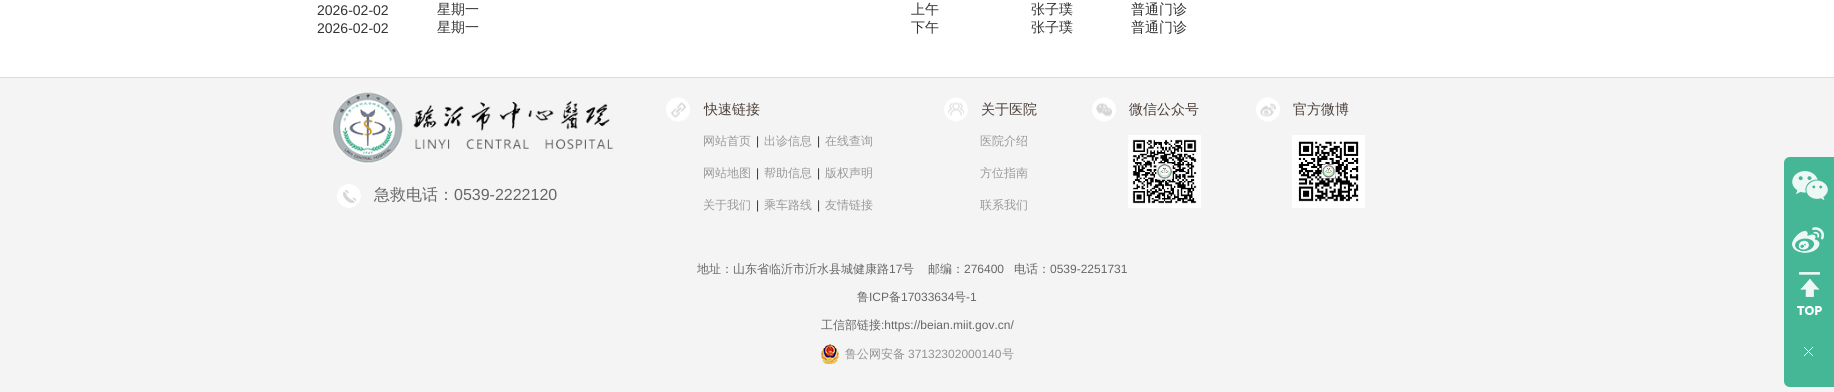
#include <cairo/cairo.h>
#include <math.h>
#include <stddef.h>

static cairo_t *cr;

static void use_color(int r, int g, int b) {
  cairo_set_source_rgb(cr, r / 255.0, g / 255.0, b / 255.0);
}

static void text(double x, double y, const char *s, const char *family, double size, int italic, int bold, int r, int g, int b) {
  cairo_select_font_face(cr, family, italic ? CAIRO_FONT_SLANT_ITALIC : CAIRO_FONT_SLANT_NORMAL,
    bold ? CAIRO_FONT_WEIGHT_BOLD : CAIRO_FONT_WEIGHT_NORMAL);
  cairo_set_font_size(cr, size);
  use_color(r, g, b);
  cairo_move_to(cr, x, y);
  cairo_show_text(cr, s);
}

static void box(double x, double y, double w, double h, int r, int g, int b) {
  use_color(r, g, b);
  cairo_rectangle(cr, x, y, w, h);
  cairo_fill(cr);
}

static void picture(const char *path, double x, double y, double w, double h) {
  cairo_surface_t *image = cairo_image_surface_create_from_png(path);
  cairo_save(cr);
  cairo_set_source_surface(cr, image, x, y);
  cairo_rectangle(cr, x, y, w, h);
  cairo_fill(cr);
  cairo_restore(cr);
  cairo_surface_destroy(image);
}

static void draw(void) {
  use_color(255, 255, 255);
  cairo_paint(cr);
  box(0, 78, 1834, 314, 244, 244, 244);
  box(0, 77, 1834, 1, 218, 218, 218);
  picture("img_01.png", 666, 97, 24, 25);
  picture("img_02.png", 944, 97, 24, 25);
  picture("img_03.png", 1092, 97, 24, 25);
  picture("img_04.png", 1128, 135, 73, 73);
  picture("img_05.png", 1256, 97, 24, 25);
  picture("img_06.png", 1292, 135, 73, 73);
  picture("img_07.png", 332, 92, 282, 72);
  picture("img_08.png", 337, 184, 24, 24);
  picture("img_09.png", 821, 344, 18, 20);
  use_color(69, 183, 150);
  cairo_new_path(cr);
  cairo_move_to(cr, 1790, 157);
  cairo_line_to(cr, 1834, 157);
  cairo_line_to(cr, 1834, 387);
  cairo_line_to(cr, 1790, 387);
  cairo_curve_to(cr, 1786.5, 387, 1784, 384.5, 1784, 381);
  cairo_line_to(cr, 1784, 163);
  cairo_curve_to(cr, 1784, 159.5, 1786.5, 157, 1790, 157);
  cairo_close_path(cr);
  cairo_fill(cr);
  picture("img_10.png", 1792, 171, 36, 29);
  picture("img_11.png", 1792, 227, 32, 26);
  picture("img_12.png", 1797, 272, 25, 43);
  picture("img_13.png", 1804, 347, 9, 9);
  text(317, 15, "2026-02-02", "Liberation Sans", 14, 0, 0, 51, 51, 51);
  text(437, 14, "星期一", "WenQuanYi Zen Hei Medium", 14, 0, 0, 51, 51, 51);
  text(911, 14, "上午", "WenQuanYi Zen Hei Medium", 14, 0, 0, 51, 51, 51);
  text(1031, 14, "张子璞", "WenQuanYi Zen Hei Medium", 14, 0, 0, 51, 51, 51);
  text(1131, 14, "普通门诊", "WenQuanYi Zen Hei Medium", 14, 0, 0, 51, 51, 51);
  text(317, 33, "2026-02-02", "Liberation Sans", 14, 0, 0, 51, 51, 51);
  text(437, 32, "星期一", "WenQuanYi Zen Hei Medium", 14, 0, 0, 51, 51, 51);
  text(911, 32, "下午", "WenQuanYi Zen Hei Medium", 14, 0, 0, 51, 51, 51);
  text(1031, 32, "张子璞", "WenQuanYi Zen Hei Medium", 14, 0, 0, 51, 51, 51);
  text(1131, 32, "普通门诊", "WenQuanYi Zen Hei Medium", 14, 0, 0, 51, 51, 51);
  text(704, 114, "快速链接", "WenQuanYi Zen Hei Medium", 14, 0, 0, 75, 63, 57);
  text(703, 145, "网站首页", "WenQuanYi Zen Hei Medium", 12, 0, 0, 153, 153, 153);
  text(756, 145, "|", "Liberation Sans", 12, 0, 0, 51, 51, 51);
  text(764, 145, "出诊信息", "WenQuanYi Zen Hei Medium", 12, 0, 0, 153, 153, 153);
  text(817, 145, "|", "Liberation Sans", 12, 0, 0, 51, 51, 51);
  text(825, 145, "在线查询", "WenQuanYi Zen Hei Medium", 12, 0, 0, 153, 153, 153);
  text(703, 177, "网站地图", "WenQuanYi Zen Hei Medium", 12, 0, 0, 153, 153, 153);
  text(756, 177, "|", "Liberation Sans", 12, 0, 0, 51, 51, 51);
  text(764, 177, "帮助信息", "WenQuanYi Zen Hei Medium", 12, 0, 0, 153, 153, 153);
  text(817, 177, "|", "Liberation Sans", 12, 0, 0, 51, 51, 51);
  text(825, 177, "版权声明", "WenQuanYi Zen Hei Medium", 12, 0, 0, 153, 153, 153);
  text(703, 209, "关于我们", "WenQuanYi Zen Hei Medium", 12, 0, 0, 153, 153, 153);
  text(756, 209, "|", "Liberation Sans", 12, 0, 0, 51, 51, 51);
  text(764, 209, "乘车路线", "WenQuanYi Zen Hei Medium", 12, 0, 0, 153, 153, 153);
  text(817, 209, "|", "Liberation Sans", 12, 0, 0, 51, 51, 51);
  text(825, 209, "友情链接", "WenQuanYi Zen Hei Medium", 12, 0, 0, 153, 153, 153);
  text(981, 114, "关于医院", "WenQuanYi Zen Hei Medium", 14, 0, 0, 75, 63, 57);
  text(980, 145, "医院介绍", "WenQuanYi Zen Hei Medium", 12, 0, 0, 153, 153, 153);
  text(980, 177, "方位指南", "WenQuanYi Zen Hei Medium", 12, 0, 0, 153, 153, 153);
  text(980, 209, "联系我们", "WenQuanYi Zen Hei Medium", 12, 0, 0, 153, 153, 153);
  text(1129, 114, "微信公众号", "WenQuanYi Zen Hei Medium", 14, 0, 0, 75, 63, 57);
  text(1293, 114, "官方微博", "WenQuanYi Zen Hei Medium", 14, 0, 0, 75, 63, 57);
  text(374, 200, "急救电话：", "WenQuanYi Zen Hei Medium", 16, 0, 0, 102, 102, 102);
  text(454, 200, "0539-2222120", "Liberation Sans", 16, 0, 0, 102, 102, 102);
  text(697, 273, "地址：山东省临沂市沂水县城健康路", "WenQuanYi Zen Hei Medium", 12, 0, 0, 102, 102, 102);
  text(889, 273, "17", "Liberation Sans", 12, 0, 0, 102, 102, 102);
  text(902, 273, "号", "WenQuanYi Zen Hei Medium", 12, 0, 0, 102, 102, 102);
  text(928, 273, "邮编：", "WenQuanYi Zen Hei Medium", 12, 0, 0, 102, 102, 102);
  text(964, 273, "276400", "Liberation Sans", 12, 0, 0, 102, 102, 102);
  text(1014, 273, "电话：", "WenQuanYi Zen Hei Medium", 12, 0, 0, 102, 102, 102);
  text(1050, 273, "0539-2251731", "Liberation Sans", 12, 0, 0, 102, 102, 102);
  text(857, 301, "鲁", "WenQuanYi Zen Hei Medium", 12, 0, 0, 102, 102, 102);
  text(869, 301, "ICP", "Liberation Sans", 12, 0, 0, 102, 102, 102);
  text(889, 301, "备", "WenQuanYi Zen Hei Medium", 12, 0, 0, 102, 102, 102);
  text(901, 301, "17033634", "Liberation Sans", 12, 0, 0, 102, 102, 102);
  text(954, 301, "号", "WenQuanYi Zen Hei Medium", 12, 0, 0, 102, 102, 102);
  text(966, 301, "-1", "Liberation Sans", 12, 0, 0, 102, 102, 102);
  text(821, 329, "工信部链接", "WenQuanYi Zen Hei Medium", 12, 0, 0, 102, 102, 102);
  text(881, 329, ":https://beian.miit.gov.cn/", "Liberation Sans", 12, 0, 0, 102, 102, 102);
  text(845, 358, "鲁公网安备", "WenQuanYi Zen Hei Medium", 12, 0, 0, 147, 147, 147);
  text(908, 358, "37132302000140", "Liberation Sans", 12, 0, 0, 147, 147, 147);
  text(1002, 358, "号", "WenQuanYi Zen Hei Medium", 12, 0, 0, 147, 147, 147);
}

int main(void) {
  cairo_surface_t *surface = cairo_image_surface_create(CAIRO_FORMAT_RGB24, 1834, 392);
  cr = cairo_create(surface);
  cairo_font_options_t *options = cairo_font_options_create();
  cairo_font_options_set_hint_metrics(options, CAIRO_HINT_METRICS_OFF);
  cairo_font_options_set_hint_style(options, CAIRO_HINT_STYLE_NONE);
  cairo_set_font_options(cr, options);
  cairo_set_miter_limit(cr, 4);
  draw();
  cairo_surface_write_to_png(surface, "out.png");
  cairo_font_options_destroy(options);
  cairo_destroy(cr);
  cairo_surface_destroy(surface);
  return 0;
}
